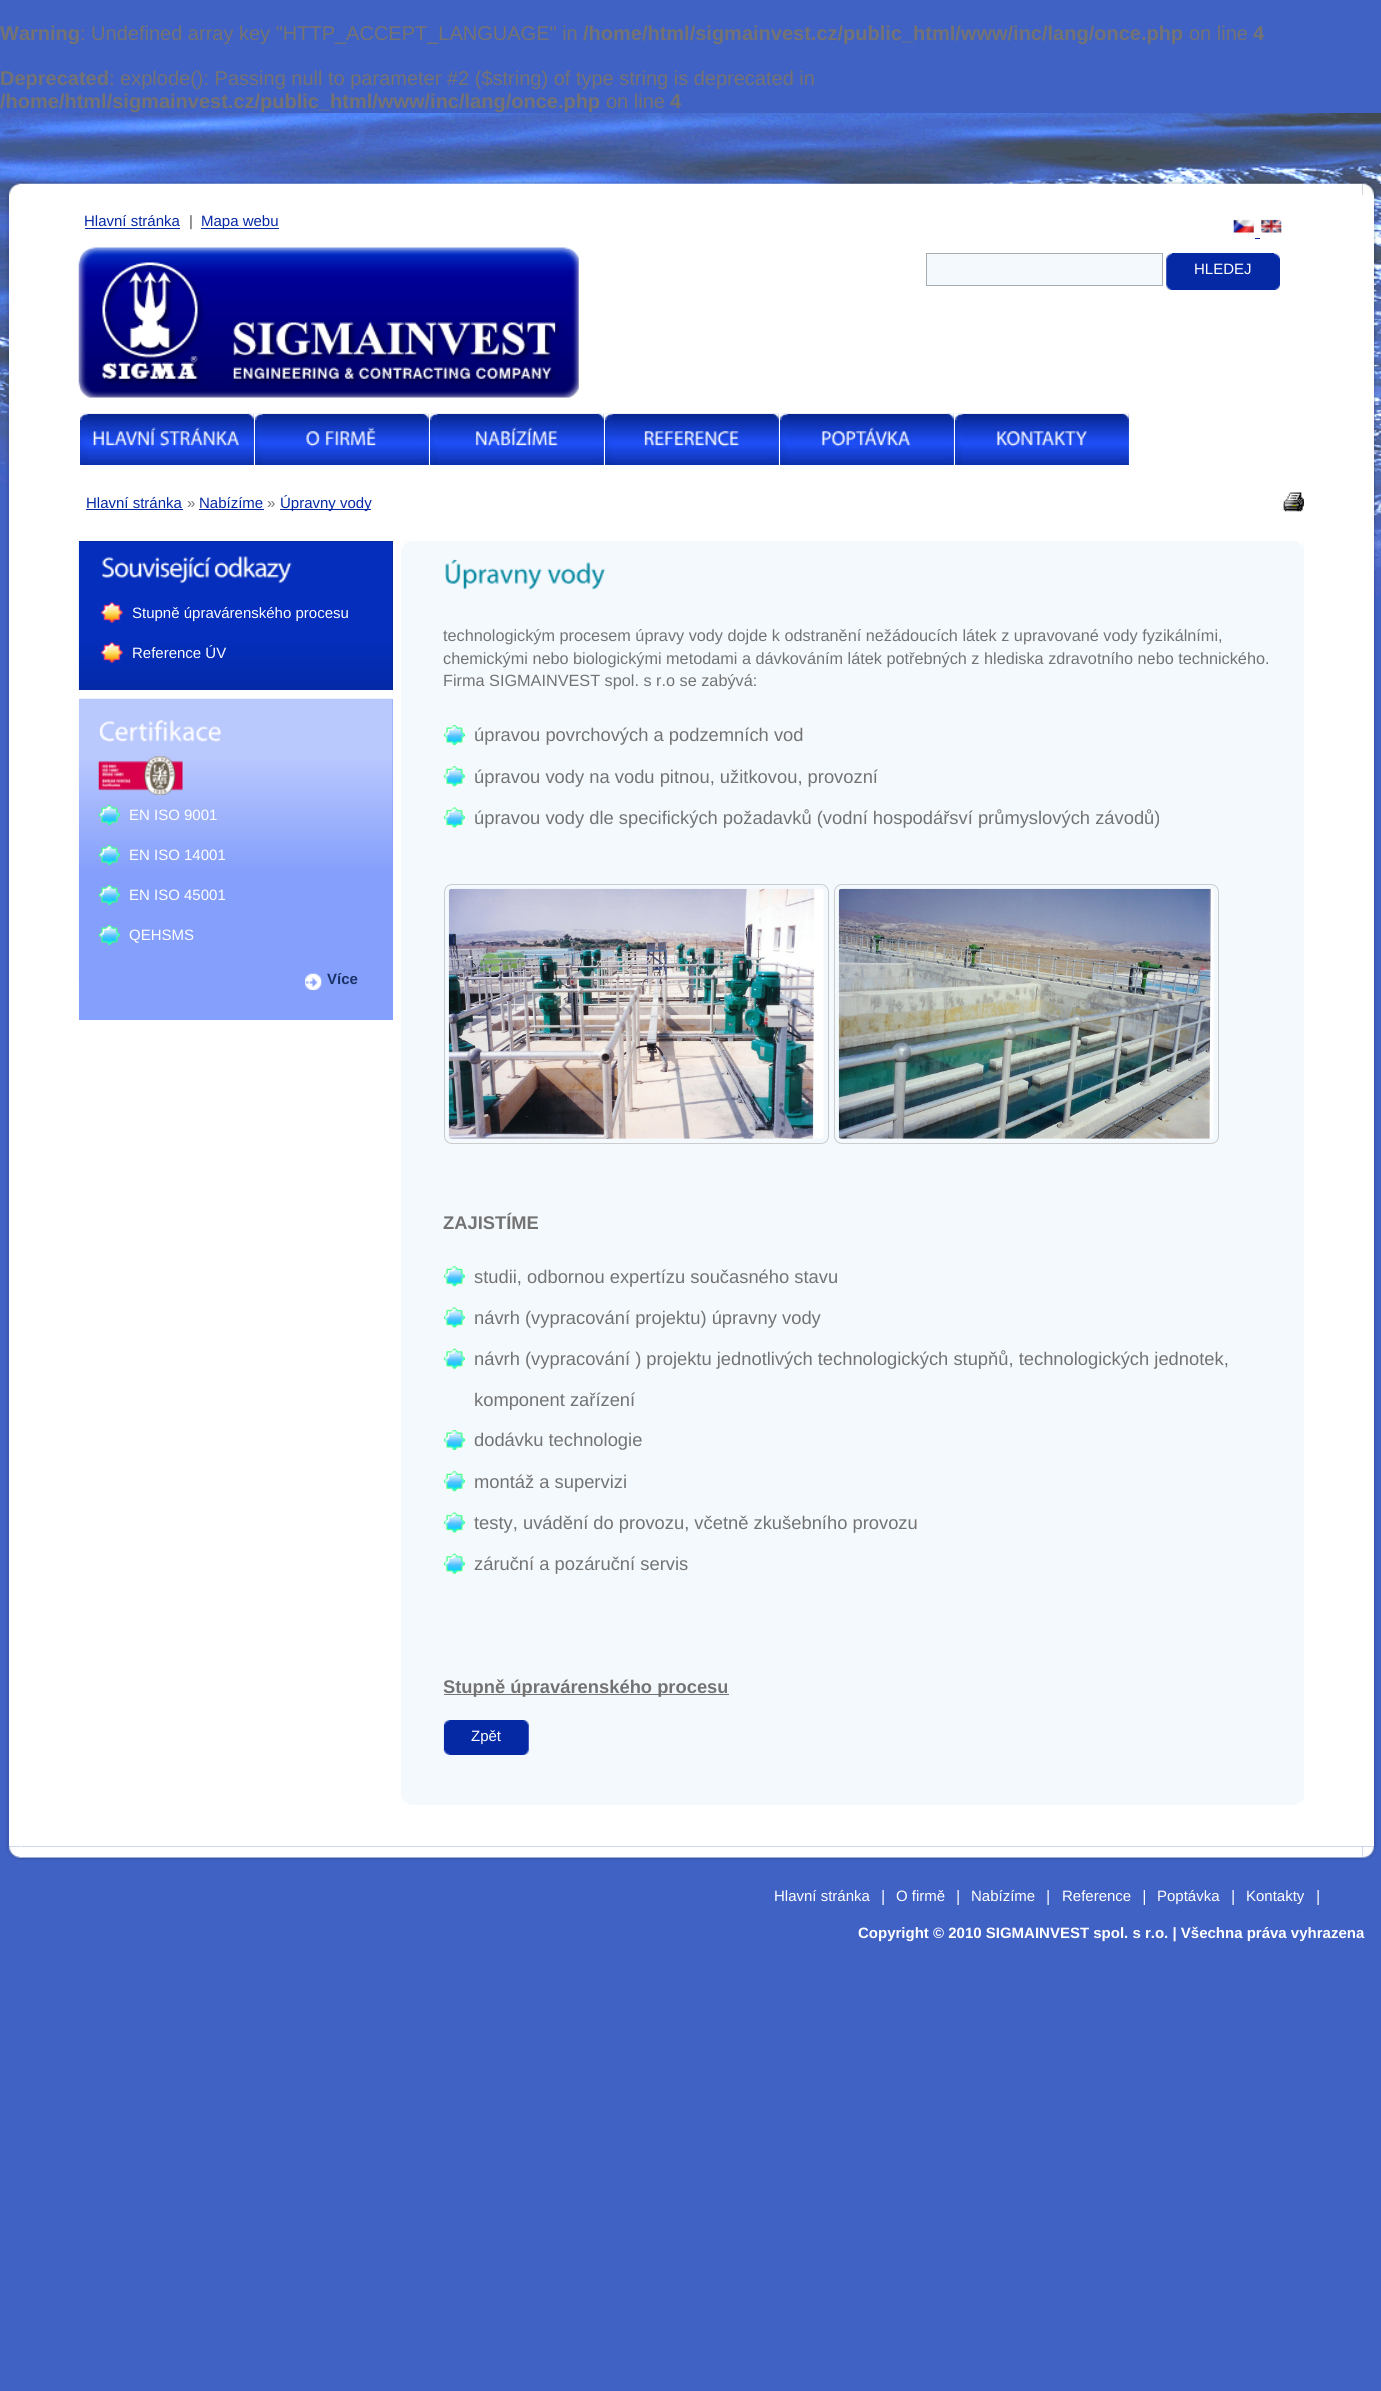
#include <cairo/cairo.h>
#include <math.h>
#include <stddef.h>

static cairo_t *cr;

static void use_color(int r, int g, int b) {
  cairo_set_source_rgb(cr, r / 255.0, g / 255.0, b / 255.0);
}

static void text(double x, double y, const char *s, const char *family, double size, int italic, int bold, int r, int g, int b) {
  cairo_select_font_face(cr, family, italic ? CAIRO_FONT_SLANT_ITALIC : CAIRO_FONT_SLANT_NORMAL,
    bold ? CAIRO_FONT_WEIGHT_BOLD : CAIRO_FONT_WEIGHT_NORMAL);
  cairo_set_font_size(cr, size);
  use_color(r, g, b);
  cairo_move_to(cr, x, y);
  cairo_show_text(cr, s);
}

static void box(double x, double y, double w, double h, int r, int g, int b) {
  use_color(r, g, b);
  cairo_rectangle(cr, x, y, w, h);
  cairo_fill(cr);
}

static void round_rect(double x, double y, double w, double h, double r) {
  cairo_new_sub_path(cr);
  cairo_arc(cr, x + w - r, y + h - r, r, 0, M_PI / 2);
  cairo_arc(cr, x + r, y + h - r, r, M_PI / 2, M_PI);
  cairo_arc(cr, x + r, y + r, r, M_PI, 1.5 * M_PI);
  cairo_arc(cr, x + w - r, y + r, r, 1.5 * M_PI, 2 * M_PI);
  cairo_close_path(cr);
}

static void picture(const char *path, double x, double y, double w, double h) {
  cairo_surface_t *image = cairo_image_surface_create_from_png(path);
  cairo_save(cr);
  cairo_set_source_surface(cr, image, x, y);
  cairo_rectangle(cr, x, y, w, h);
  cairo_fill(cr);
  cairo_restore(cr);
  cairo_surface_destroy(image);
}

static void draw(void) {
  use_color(65, 98, 197);
  cairo_paint(cr);
  picture("img_01.png", 0, 113, 1381, 549);
  picture("img_02.png", 6, 181, 16, 14);
  picture("img_03.png", 1362, 181, 14, 14);
  picture("img_04.png", 20, 181, 1343, 14);
  picture("img_05.png", 5, 195, 4, 1652);
  picture("img_06.png", 1374, 195, 3, 1652);
  box(9, 195, 1365, 1651, 255, 255, 255);
  picture("img_07.png", 78, 247, 501, 151);
  box(85, 228, 95, 1, 5, 41, 165);
  box(201, 228, 78, 1, 5, 41, 165);
  picture("img_08.png", 1233, 219, 21, 14);
  picture("img_09.png", 1261, 219, 21, 14);
  box(1255, 238, 5, 1, 5, 41, 165);
  use_color(244, 249, 253);
  cairo_rectangle(cr, 926.5, 253.5, 236, 32);
  cairo_fill_preserve(cr);
  use_color(165, 172, 178);
  cairo_set_line_width(cr, 1);
  cairo_stroke(cr);
  picture("img_10.png", 1166, 253, 6, 37);
  picture("img_11.png", 1274, 253, 6, 37);
  box(1172, 253, 102, 37, 5, 41, 165);
  picture("img_12.png", 80, 413, 174, 52);
  picture("img_13.png", 80, 413, 8, 52);
  picture("img_14.png", 247, 413, 7, 52);
  picture("img_15.png", 93, 427, 63, 19);
  picture("img_16.png", 160, 427, 79, 20);
  picture("img_12.png", 255, 413, 174, 52);
  picture("img_17.png", 255, 413, 8, 52);
  picture("img_14.png", 422, 413, 7, 52);
  picture("img_18.png", 306, 431, 14, 16);
  picture("img_19.png", 325, 427, 52, 19);
  picture("img_12.png", 430, 413, 174, 52);
  picture("img_17.png", 430, 413, 8, 52);
  picture("img_14.png", 597, 413, 7, 52);
  picture("img_20.png", 475, 427, 83, 19);
  picture("img_12.png", 605, 413, 174, 52);
  picture("img_13.png", 605, 413, 8, 52);
  picture("img_21.png", 772, 413, 7, 52);
  picture("img_22.png", 644, 431, 95, 16);
  picture("img_12.png", 780, 413, 174, 52);
  picture("img_17.png", 780, 413, 8, 52);
  picture("img_21.png", 947, 413, 7, 52);
  picture("img_23.png", 821, 427, 90, 20);
  picture("img_12.png", 955, 413, 174, 52);
  picture("img_13.png", 955, 413, 8, 52);
  picture("img_21.png", 1122, 413, 7, 52);
  picture("img_24.png", 996, 431, 92, 16);
  box(86, 509, 97, 1, 5, 41, 165);
  box(199, 509, 65, 1, 5, 41, 165);
  box(280, 509, 91, 1, 5, 41, 165);
  picture("img_26.png", 1283, 494, 21, 18);
  picture("img_25.png", 1283, 492, 21, 19);
  box(79, 541, 314, 149, 4, 33, 132);
  picture("img_27.png", 78, 541, 315, 149);
  picture("img_28.png", 102, 557, 110, 27);
  picture("img_29.png", 214, 556, 78, 28);
  picture("img_30.png", 101, 602, 22, 21);
  picture("img_31.png", 101, 642, 22, 21);
  box(79, 699, 314, 321, 133, 159, 252);
  picture("img_32.png", 78, 698, 315, 282);
  picture("img_33.png", 99, 720, 123, 22);
  picture("img_34.png", 98, 756, 85, 39);
  picture("img_35.png", 98, 805, 22, 20);
  picture("img_36.png", 98, 845, 22, 20);
  picture("img_37.png", 98, 885, 22, 20);
  picture("img_37.png", 98, 925, 22, 20);
  picture("img_38.png", 305, 973, 17, 17);
  box(401, 541, 903, 1264, 244, 249, 253);
  picture("img_39.png", 401, 541, 8, 8);
  picture("img_40.png", 1297, 541, 7, 7);
  picture("img_41.png", 401, 1797, 9, 8);
  picture("img_42.png", 1296, 1799, 8, 6);
  picture("img_43.png", 445, 559, 97, 31);
  picture("img_44.png", 547, 562, 59, 28);
  picture("img_45.png", 443, 725, 22, 20);
  picture("img_46.png", 443, 766, 22, 21);
  picture("img_47.png", 443, 807, 22, 21);
  round_rect(444.5, 884.5, 384, 259, 7.5);
  use_color(204, 204, 204);
  cairo_stroke(cr);
  round_rect(834.5, 884.5, 384, 259, 7.5);
  cairo_stroke(cr);
  picture("img_48.png", 448, 888, 376, 251);
  picture("img_49.png", 838, 888, 376, 251);
  picture("img_46.png", 443, 1266, 22, 21);
  picture("img_47.png", 443, 1307, 22, 21);
  picture("img_50.png", 443, 1348, 22, 21);
  picture("img_45.png", 443, 1430, 22, 20);
  picture("img_46.png", 443, 1471, 22, 21);
  picture("img_47.png", 443, 1512, 22, 21);
  picture("img_51.png", 443, 1553, 22, 21);
  box(444, 1694, 285, 1, 115, 115, 115);
  picture("img_52.png", 443, 1720, 8, 35);
  picture("img_53.png", 523, 1720, 6, 35);
  box(451, 1720, 72, 35, 5, 41, 165);
  picture("img_54.png", 6, 1846, 16, 15);
  picture("img_55.png", 1362, 1846, 15, 14);
  picture("img_56.png", 20, 1846, 1343, 15);
  picture("img_57.png", 882, 1890, 2, 15);
  picture("img_57.png", 957, 1890, 2, 15);
  picture("img_57.png", 1047, 1890, 2, 15);
  picture("img_58.png", 1143, 1890, 2, 15);
  picture("img_57.png", 1232, 1890, 2, 15);
  picture("img_57.png", 1317, 1890, 2, 15);
  text(0, 40, "Warning", "Liberation Sans", 20, 0, 1, 115, 115, 115);
  text(80, 40, ": Undefined array key \"HTTP_ACCEPT_LANGUAGE\" in", "Liberation Sans", 20, 0, 0, 115, 115, 115);
  text(583, 40, "/home/html/sigmainvest.cz/public_html/www/inc/lang/once.php", "Liberation Sans", 20, 0, 1, 115, 115, 115);
  text(1189, 40, "on line", "Liberation Sans", 20, 0, 0, 115, 115, 115);
  text(1253, 40, "4", "Liberation Sans", 20, 0, 1, 115, 115, 115);
  text(0, 85, "Deprecated", "Liberation Sans", 20, 0, 1, 115, 115, 115);
  text(109, 85, ": explode(): Passing null to parameter #2 ($string) of type string is deprecated in", "Liberation Sans", 20, 0, 0, 115, 115, 115);
  text(0, 108, "/home/html/sigmainvest.cz/public_html/www/inc/lang/once.php", "Liberation Sans", 20, 0, 1, 115, 115, 115);
  text(606, 108, "on line", "Liberation Sans", 20, 0, 0, 115, 115, 115);
  text(670, 108, "4", "Liberation Sans", 20, 0, 1, 115, 115, 115);
  text(84, 226, "Hlavní stránka", "Liberation Sans", 15, 0, 0, 5, 41, 165);
  text(189, 226, "|", "Liberation Sans", 15, 0, 0, 80, 80, 80);
  text(201, 226, "Mapa webu", "Liberation Sans", 15, 0, 0, 5, 41, 165);
  text(1194, 274, "HLEDEJ", "Liberation Sans", 15, 0, 0, 255, 255, 255);
  text(86, 508, "Hlavní stránka", "Liberation Sans", 15, 0, 0, 5, 41, 165);
  text(187, 508, "»", "Liberation Sans", 15, 0, 0, 115, 115, 115);
  text(199, 508, "Nabízíme", "Liberation Sans", 15, 0, 0, 5, 41, 165);
  text(267, 508, "»", "Liberation Sans", 15, 0, 0, 115, 115, 115);
  text(280, 508, "Úpravny vody", "Liberation Sans", 15, 0, 0, 5, 41, 165);
  text(132, 618, "Stupně úpravárenského procesu", "Liberation Sans", 15, 0, 0, 255, 255, 255);
  text(132, 658, "Reference ÚV", "Liberation Sans", 15, 0, 0, 255, 255, 255);
  text(129, 820, "EN ISO 9001", "Liberation Sans", 15, 0, 0, 255, 255, 255);
  text(129, 860, "EN ISO 14001", "Liberation Sans", 15, 0, 0, 255, 255, 255);
  text(129, 900, "EN ISO 45001", "Liberation Sans", 15, 0, 0, 255, 255, 255);
  text(129, 940, "QEHSMS", "Liberation Sans", 15, 0, 0, 255, 255, 255);
  text(327, 984, "Více", "Liberation Sans", 15, 0, 1, 26, 49, 104);
  text(443, 641, "technologickým procesem úpravy vody dojde k odstranění nežádoucích látek z upravované vody fyzikálními,", "Liberation Sans", 16.25, 0, 0, 115, 115, 115);
  text(443, 664, "chemickými nebo biologickými metodami a dávkováním látek potřebných z hlediska zdravotního nebo technického.", "Liberation Sans", 16.25, 0, 0, 115, 115, 115);
  text(443, 686, "Firma SIGMAINVEST spol. s r.o se zabývá:", "Liberation Sans", 16.25, 0, 0, 115, 115, 115);
  text(474, 741, "úpravou povrchových a podzemních vod", "Liberation Sans", 18.35, 0, 0, 115, 115, 115);
  text(474, 783, "úpravou vody na vodu pitnou, užitkovou, provozní", "Liberation Sans", 18.35, 0, 0, 115, 115, 115);
  text(474, 824, "úpravou vody dle specifických požadavků (vodní hospodářsví průmyslových závodů)", "Liberation Sans", 18.35, 0, 0, 115, 115, 115);
  text(443, 1229, "ZAJISTÍME", "Liberation Sans", 18.35, 0, 1, 115, 115, 115);
  text(474, 1283, "studii, odbornou expertízu současného stavu", "Liberation Sans", 18.35, 0, 0, 115, 115, 115);
  text(474, 1324, "návrh (vypracování projektu) úpravny vody", "Liberation Sans", 18.35, 0, 0, 115, 115, 115);
  text(474, 1365, "návrh (vypracování ) projektu jednotlivých technologických stupňů, technologických jednotek,", "Liberation Sans", 18.35, 0, 0, 115, 115, 115);
  text(474, 1406, "komponent zařízení", "Liberation Sans", 18.35, 0, 0, 115, 115, 115);
  text(474, 1446, "dodávku technologie", "Liberation Sans", 18.35, 0, 0, 115, 115, 115);
  text(474, 1488, "montáž a supervizi", "Liberation Sans", 18.35, 0, 0, 115, 115, 115);
  text(474, 1529, "testy, uvádění do provozu, včetně zkušebního provozu", "Liberation Sans", 18.35, 0, 0, 115, 115, 115);
  text(474, 1570, "záruční a pozáruční servis", "Liberation Sans", 18.35, 0, 0, 115, 115, 115);
  text(443, 1693, "Stupně úpravárenského procesu", "Liberation Sans", 18.35, 0, 1, 115, 115, 115);
  text(471, 1741, "Zpět", "Liberation Sans", 15, 0, 0, 255, 255, 255);
  text(774, 1901, "Hlavní stránka", "Liberation Sans", 15, 0, 0, 255, 255, 255);
  text(896, 1901, "O firmě", "Liberation Sans", 15, 0, 0, 255, 255, 255);
  text(971, 1901, "Nabízíme", "Liberation Sans", 15, 0, 0, 255, 255, 255);
  text(1062, 1901, "Reference", "Liberation Sans", 15, 0, 0, 255, 255, 255);
  text(1157, 1901, "Poptávka", "Liberation Sans", 15, 0, 0, 255, 255, 255);
  text(1246, 1901, "Kontakty", "Liberation Sans", 15, 0, 0, 255, 255, 255);
  text(858, 1938, "Copyright © 2010 SIGMAINVEST spol. s r.o. | Všechna práva vyhrazena", "Liberation Sans", 15, 0, 1, 255, 255, 255);
}

int main(void) {
  cairo_surface_t *surface = cairo_image_surface_create(CAIRO_FORMAT_RGB24, 1381, 2391);
  cr = cairo_create(surface);
  cairo_font_options_t *options = cairo_font_options_create();
  cairo_font_options_set_hint_metrics(options, CAIRO_HINT_METRICS_OFF);
  cairo_font_options_set_hint_style(options, CAIRO_HINT_STYLE_NONE);
  cairo_set_font_options(cr, options);
  cairo_set_miter_limit(cr, 4);
  draw();
  cairo_surface_write_to_png(surface, "out.png");
  cairo_font_options_destroy(options);
  cairo_destroy(cr);
  cairo_surface_destroy(surface);
  return 0;
}
